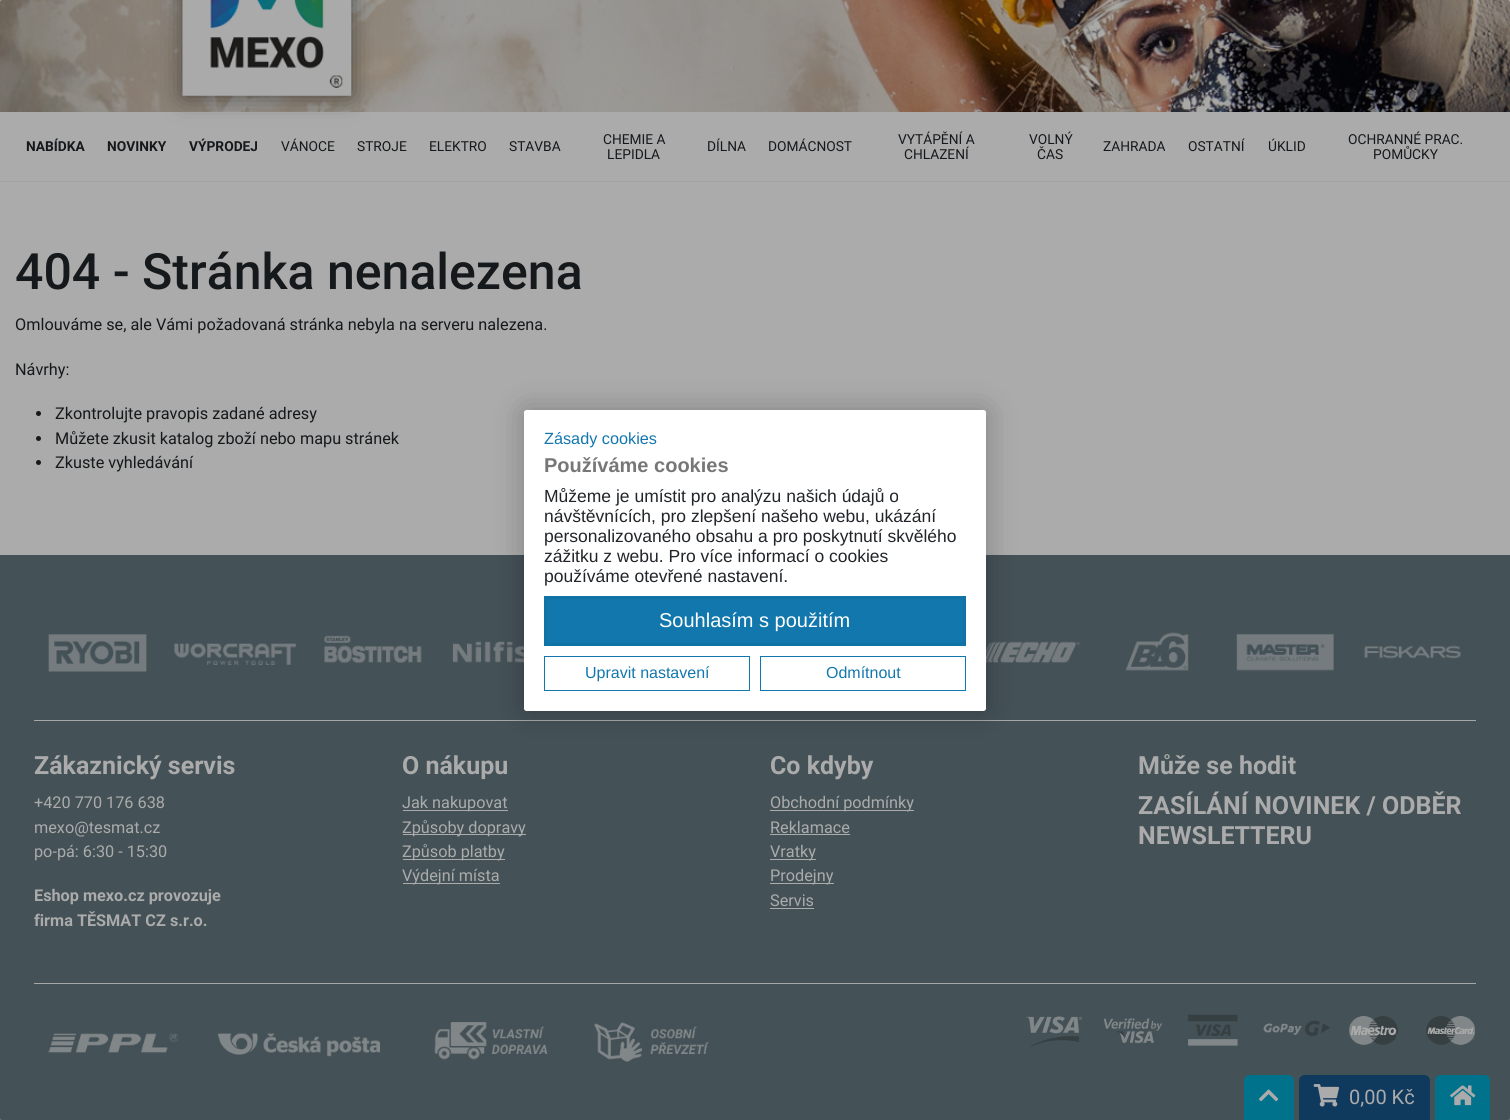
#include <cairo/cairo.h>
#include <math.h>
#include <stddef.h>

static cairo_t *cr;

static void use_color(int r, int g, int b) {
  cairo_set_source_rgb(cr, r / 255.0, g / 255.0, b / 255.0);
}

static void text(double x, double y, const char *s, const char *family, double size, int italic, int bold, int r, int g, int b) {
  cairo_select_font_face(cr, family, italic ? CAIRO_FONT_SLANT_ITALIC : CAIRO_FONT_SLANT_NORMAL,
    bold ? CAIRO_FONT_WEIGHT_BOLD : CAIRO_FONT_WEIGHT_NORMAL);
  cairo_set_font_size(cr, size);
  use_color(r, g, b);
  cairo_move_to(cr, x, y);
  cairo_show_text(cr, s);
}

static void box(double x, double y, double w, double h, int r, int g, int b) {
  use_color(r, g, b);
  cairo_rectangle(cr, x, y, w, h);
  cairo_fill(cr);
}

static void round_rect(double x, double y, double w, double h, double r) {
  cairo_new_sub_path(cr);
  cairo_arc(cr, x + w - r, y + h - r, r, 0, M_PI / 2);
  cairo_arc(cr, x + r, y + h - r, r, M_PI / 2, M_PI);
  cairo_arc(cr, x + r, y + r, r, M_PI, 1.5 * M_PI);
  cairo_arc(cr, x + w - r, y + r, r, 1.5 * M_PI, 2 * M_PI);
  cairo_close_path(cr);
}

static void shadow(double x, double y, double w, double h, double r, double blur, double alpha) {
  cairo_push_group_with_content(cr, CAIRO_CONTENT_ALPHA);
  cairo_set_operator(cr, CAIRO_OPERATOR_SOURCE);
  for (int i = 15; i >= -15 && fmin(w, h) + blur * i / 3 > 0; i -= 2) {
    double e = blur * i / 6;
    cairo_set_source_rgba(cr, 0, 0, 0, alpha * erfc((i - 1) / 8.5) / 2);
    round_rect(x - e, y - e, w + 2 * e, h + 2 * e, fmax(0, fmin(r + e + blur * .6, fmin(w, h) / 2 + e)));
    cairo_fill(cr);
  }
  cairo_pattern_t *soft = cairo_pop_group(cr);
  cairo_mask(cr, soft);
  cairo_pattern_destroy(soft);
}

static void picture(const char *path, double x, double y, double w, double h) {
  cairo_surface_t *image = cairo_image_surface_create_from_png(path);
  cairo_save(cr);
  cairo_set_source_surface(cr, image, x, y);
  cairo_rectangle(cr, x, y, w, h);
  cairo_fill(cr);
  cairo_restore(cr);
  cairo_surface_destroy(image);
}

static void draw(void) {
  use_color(255, 255, 255);
  cairo_paint(cr);
  picture("img_01.png", 0, 0, 1510, 112);
  use_color(0, 0, 0);
  shadow(183, -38, 168, 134, 0, 12.5, 0.5);
  picture("img_02.png", 182, 0, 170, 96);
  box(0, 181, 1510, 1, 241, 241, 241);
  use_color(33, 37, 41);
  cairo_arc(cr, 38.5, 413.5, 2.5, 0, 2 * M_PI);
  cairo_fill(cr);
  cairo_arc(cr, 38.5, 438.5, 2.5, 0, 2 * M_PI);
  cairo_fill(cr);
  cairo_arc(cr, 38.5, 462.5, 2.5, 0, 2 * M_PI);
  cairo_fill(cr);
  box(0, 555, 1510, 565, 101, 121, 129);
  box(34, 720, 1442, 1, 248, 249, 250);
  picture("img_03.png", 48, 634, 99, 38);
  picture("img_04.png", 174, 643, 122, 22);
  picture("img_05.png", 324, 635, 98, 29);
  picture("img_06.png", 452, 641, 72, 22);
  picture("img_07.png", 986, 641, 94, 22);
  picture("img_08.png", 1125, 632, 64, 39);
  picture("img_09.png", 1236, 633, 98, 38);
  picture("img_10.png", 1364, 645, 97, 14);
  box(34, 983, 1442, 1, 248, 249, 250);
  box(403, 810, 105, 1, 255, 255, 255);
  box(403, 834, 123, 1, 255, 255, 255);
  box(403, 859, 102, 1, 255, 255, 255);
  box(403, 883, 97, 1, 255, 255, 255);
  box(770, 810, 144, 1, 255, 255, 255);
  box(770, 834, 80, 1, 255, 255, 255);
  box(770, 859, 46, 1, 255, 255, 255);
  box(770, 883, 64, 1, 255, 255, 255);
  box(770, 908, 44, 1, 255, 255, 255);
  picture("img_11.png", 48, 1033, 130, 20);
  picture("img_12.png", 218, 1033, 162, 24);
  picture("img_13.png", 434, 1022, 114, 38);
  picture("img_14.png", 594, 1022, 115, 40);
  picture("img_15.png", 1026, 1014, 449, 33);
  use_color(0, 170, 208);
  cairo_new_path(cr);
  cairo_move_to(cr, 1250, 1075);
  cairo_line_to(cr, 1288, 1075);
  cairo_curve_to(cr, 1291.5, 1075, 1294, 1077.5, 1294, 1081);
  cairo_line_to(cr, 1294, 1120);
  cairo_line_to(cr, 1244, 1120);
  cairo_line_to(cr, 1244, 1081);
  cairo_curve_to(cr, 1244, 1077.5, 1246.5, 1075, 1250, 1075);
  cairo_close_path(cr);
  cairo_fill(cr);
  picture("img_16.png", 1259, 1089, 20, 13);
  use_color(23, 86, 140);
  cairo_new_path(cr);
  cairo_move_to(cr, 1305, 1075);
  cairo_line_to(cr, 1424, 1075);
  cairo_curve_to(cr, 1427.5, 1075, 1430, 1077.5, 1430, 1081);
  cairo_line_to(cr, 1430, 1120);
  cairo_line_to(cr, 1299, 1120);
  cairo_line_to(cr, 1299, 1081);
  cairo_curve_to(cr, 1299, 1077.5, 1301.5, 1075, 1305, 1075);
  cairo_close_path(cr);
  cairo_fill(cr);
  picture("img_17.png", 1313, 1084, 26, 23);
  use_color(0, 170, 208);
  cairo_new_path(cr);
  cairo_move_to(cr, 1441, 1075);
  cairo_line_to(cr, 1484, 1075);
  cairo_curve_to(cr, 1487.5, 1075, 1490, 1077.5, 1490, 1081);
  cairo_line_to(cr, 1490, 1120);
  cairo_line_to(cr, 1435, 1120);
  cairo_line_to(cr, 1435, 1081);
  cairo_curve_to(cr, 1435, 1077.5, 1437.5, 1075, 1441, 1075);
  cairo_close_path(cr);
  cairo_fill(cr);
  picture("img_18.png", 1450, 1085, 26, 21);
  text(26, 151, "NABÍDKA", "Roboto", 13.75, 0, 1, 33, 37, 41);
  text(107, 151, "NOVINKY", "Roboto", 13.75, 0, 1, 33, 37, 41);
  text(189, 151, "VÝPRODEJ", "Roboto", 13.75, 0, 1, 33, 37, 41);
  text(281, 151, "VÁNOCE", "Roboto", 13.75, 0, 0, 33, 37, 41);
  text(357, 151, "STROJE", "Roboto", 13.75, 0, 0, 33, 37, 41);
  text(429, 151, "ELEKTRO", "Roboto", 13.75, 0, 0, 33, 37, 41);
  text(509, 151, "STAVBA", "Roboto", 13.75, 0, 0, 33, 37, 41);
  text(603, 144, "CHEMIE A", "Roboto", 13.75, 0, 0, 33, 37, 41);
  text(607, 159, "LEPIDLA", "Roboto", 13.75, 0, 0, 33, 37, 41);
  text(707, 151, "DÍLNA", "Roboto", 13.75, 0, 0, 33, 37, 41);
  text(768, 151, "DOMÁCNOST", "Roboto", 13.75, 0, 0, 33, 37, 41);
  text(898, 144, "VYTÁPĚNÍ A", "Roboto", 13.75, 0, 0, 33, 37, 41);
  text(904, 159, "CHLAZENÍ", "Roboto", 13.75, 0, 0, 33, 37, 41);
  text(1029, 144, "VOLNÝ", "Roboto", 13.75, 0, 0, 33, 37, 41);
  text(1037, 159, "ČAS", "Roboto", 13.75, 0, 0, 33, 37, 41);
  text(1103, 151, "ZAHRADA", "Roboto", 13.75, 0, 0, 33, 37, 41);
  text(1188, 151, "OSTATNÍ", "Roboto", 13.75, 0, 0, 33, 37, 41);
  text(1268, 151, "ÚKLID", "Roboto", 13.75, 0, 0, 33, 37, 41);
  text(1348, 144, "OCHRANNÉ PRAC.", "Roboto", 13.75, 0, 0, 33, 37, 41);
  text(1373, 159, "POMŮCKY", "Roboto", 13.75, 0, 0, 33, 37, 41);
  text(15, 289, "404 - Stránka nenalezena", "Roboto Medium", 50, 0, 0, 33, 37, 41);
  text(15, 330, "Omlouváme se, ale Vámi požadovaná stránka nebyla na serveru nalezena.", "Roboto", 16.25, 0, 0, 33, 37, 41);
  text(15, 375, "Návrhy:", "Roboto", 16.25, 0, 0, 33, 37, 41);
  text(55, 419, "Zkontrolujte pravopis zadané adresy", "Roboto", 16.25, 0, 0, 33, 37, 41);
  text(55, 444, "Můžete zkusit katalog zboží nebo mapu stránek", "Roboto", 16.25, 0, 0, 33, 37, 41);
  text(55, 468, "Zkuste vyhledávání", "Roboto", 16.25, 0, 0, 33, 37, 41);
  text(34, 774, "Zákaznický servis", "Roboto", 25, 0, 1, 255, 255, 255);
  text(34, 808, "+420 770 176 638", "Roboto", 16.25, 0, 0, 255, 255, 255);
  text(34, 833, "mexo@tesmat.cz", "Roboto", 16.25, 0, 0, 255, 255, 255);
  text(34, 857, "po-pá: 6:30 - 15:30", "Roboto", 16.25, 0, 0, 255, 255, 255);
  text(34, 901, "Eshop mexo.cz provozuje", "Roboto", 16.25, 0, 1, 255, 255, 255);
  text(34, 926, "firma TĚSMAT CZ s.r.o.", "Roboto", 16.25, 0, 1, 255, 255, 255);
  text(402, 774, "O nákupu", "Roboto", 25, 0, 1, 255, 255, 255);
  text(402, 808, "Jak nakupovat", "Roboto", 16.25, 0, 0, 255, 255, 255);
  text(402, 833, "Způsoby dopravy", "Roboto", 16.25, 0, 0, 255, 255, 255);
  text(402, 857, "Způsob platby", "Roboto", 16.25, 0, 0, 255, 255, 255);
  text(402, 881, "Výdejní místa", "Roboto", 16.25, 0, 0, 255, 255, 255);
  text(770, 774, "Co kdyby", "Roboto", 25, 0, 1, 255, 255, 255);
  text(770, 808, "Obchodní podmínky", "Roboto", 16.25, 0, 0, 255, 255, 255);
  text(770, 833, "Reklamace", "Roboto", 16.25, 0, 0, 255, 255, 255);
  text(770, 857, "Vratky", "Roboto", 16.25, 0, 0, 255, 255, 255);
  text(770, 881, "Prodejny", "Roboto", 16.25, 0, 0, 255, 255, 255);
  text(770, 906, "Servis", "Roboto", 16.25, 0, 0, 255, 255, 255);
  text(1138, 774, "Může se hodit", "Roboto", 25, 0, 1, 255, 255, 255);
  text(1138, 814, "ZASÍLÁNÍ NOVINEK / ODBĚR", "Roboto", 25, 0, 1, 255, 255, 255);
  text(1138, 844, "NEWSLETTERU", "Roboto", 25, 0, 1, 255, 255, 255);
  text(1349, 1104, "0,00 Kč", "Roboto", 20, 0, 0, 255, 255, 255);
  cairo_set_source_rgba(cr, 0, 0, 0, 0.33);
  round_rect(0, 0, 1510, 1120, 2.5);
  cairo_fill(cr);
  use_color(0, 0, 0);
  shadow(524, 410, 462, 301, 2.5, 15, 0.25);
  use_color(255, 255, 255);
  round_rect(524, 410, 462, 301, 2.5);
  cairo_fill(cr);
  use_color(17, 119, 173);
  cairo_rectangle(cr, 545.5, 597.5, 419, 47);
  cairo_fill_preserve(cr);
  use_color(17, 114, 165);
  cairo_set_line_width(cr, 3);
  cairo_stroke(cr);
  text(659, 627, "Souhlasím s použitím", "Liberation Sans", 20, 0, 0, 255, 255, 255);
  cairo_rectangle(cr, 760.5, 656.5, 205, 34);
  use_color(17, 119, 173);
  cairo_set_line_width(cr, 1);
  cairo_stroke(cr);
  text(826, 678, "Odmítnout", "Liberation Sans", 16, 0, 0, 17, 119, 173);
  cairo_rectangle(cr, 544.5, 656.5, 205, 34);
  cairo_stroke(cr);
  text(585, 678, "Upravit nastavení", "Liberation Sans", 16, 0, 0, 17, 119, 173);
  text(544, 582, "používáme otevřené nastavení.", "Liberation Sans", 17.5, 0, 0, 33, 37, 41);
  text(544, 562, "zážitku z webu. Pro více informací o cookies", "Liberation Sans", 17.5, 0, 0, 33, 37, 41);
  text(544, 542, "personalizovaného obsahu a pro poskytnutí skvělého", "Liberation Sans", 17.5, 0, 0, 33, 37, 41);
  text(544, 522, "návštěvnících, pro zlepšení našeho webu, ukázání", "Liberation Sans", 17.5, 0, 0, 33, 37, 41);
  text(544, 502, "Můžeme je umístit pro analýzu našich údajů o", "Liberation Sans", 17.5, 0, 0, 33, 37, 41);
  text(544, 472, "Používáme cookies", "Liberation Sans", 20, 0, 1, 119, 119, 119);
  text(544, 444, "Zásady cookies", "Liberation Sans", 16.25, 0, 0, 17, 119, 173);
}

int main(void) {
  cairo_surface_t *surface = cairo_image_surface_create(CAIRO_FORMAT_RGB24, 1510, 1120);
  cr = cairo_create(surface);
  cairo_font_options_t *options = cairo_font_options_create();
  cairo_font_options_set_hint_metrics(options, CAIRO_HINT_METRICS_OFF);
  cairo_font_options_set_hint_style(options, CAIRO_HINT_STYLE_NONE);
  cairo_set_font_options(cr, options);
  cairo_set_miter_limit(cr, 4);
  draw();
  cairo_surface_write_to_png(surface, "out.png");
  cairo_font_options_destroy(options);
  cairo_destroy(cr);
  cairo_surface_destroy(surface);
  return 0;
}
